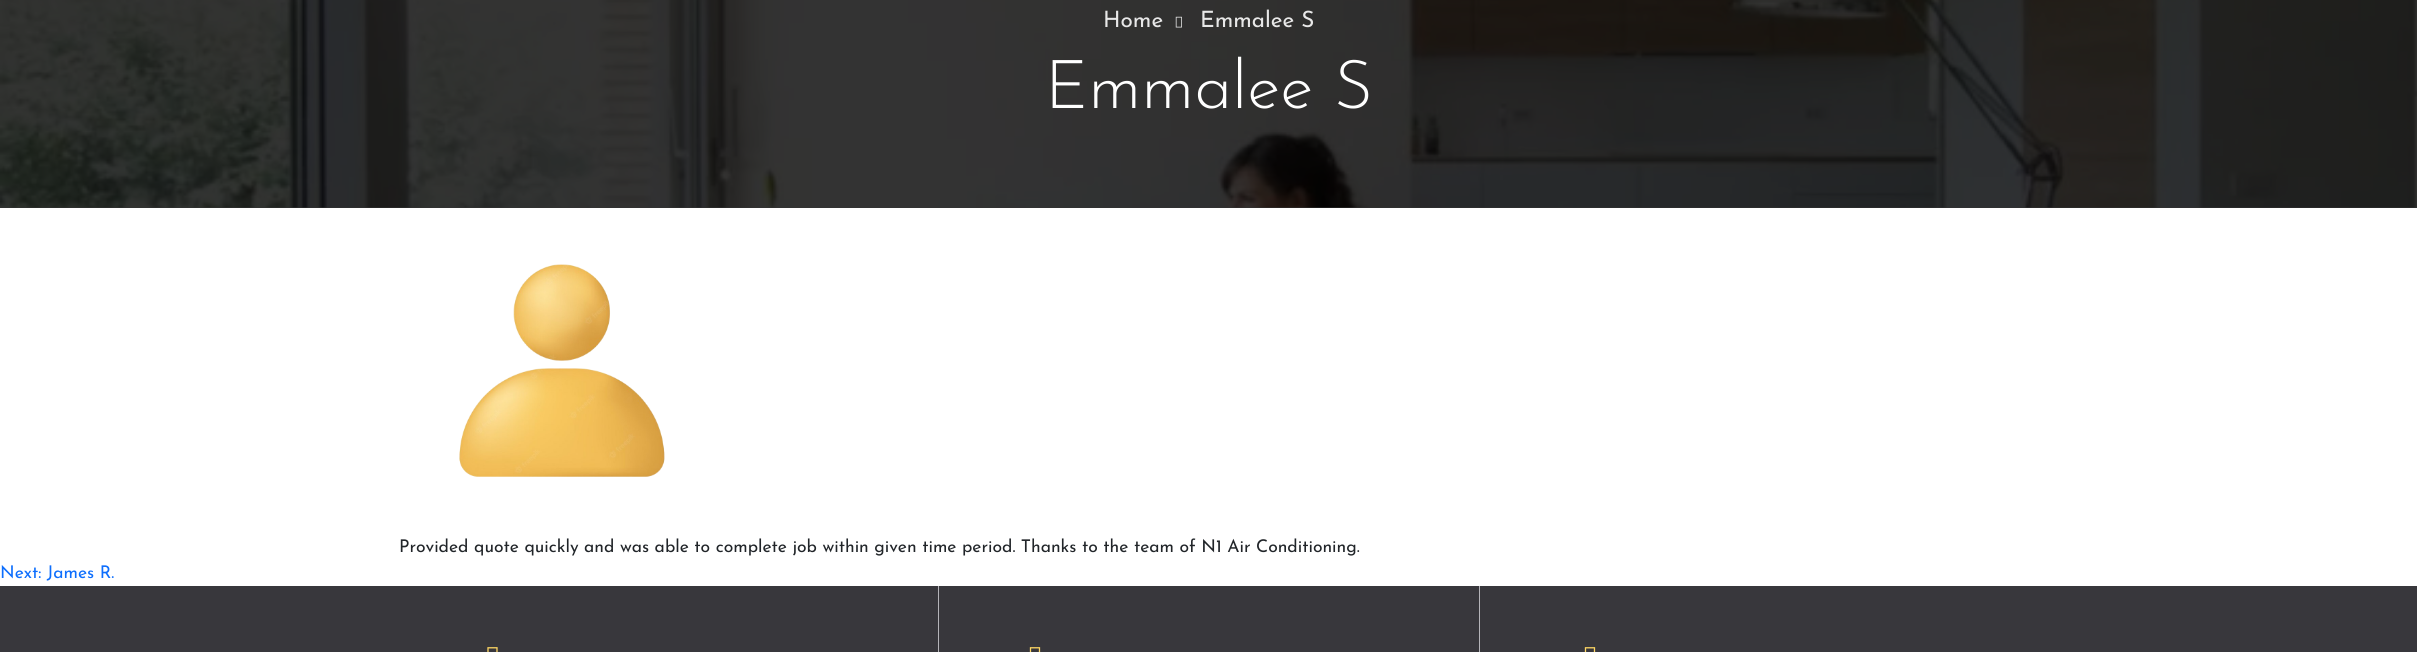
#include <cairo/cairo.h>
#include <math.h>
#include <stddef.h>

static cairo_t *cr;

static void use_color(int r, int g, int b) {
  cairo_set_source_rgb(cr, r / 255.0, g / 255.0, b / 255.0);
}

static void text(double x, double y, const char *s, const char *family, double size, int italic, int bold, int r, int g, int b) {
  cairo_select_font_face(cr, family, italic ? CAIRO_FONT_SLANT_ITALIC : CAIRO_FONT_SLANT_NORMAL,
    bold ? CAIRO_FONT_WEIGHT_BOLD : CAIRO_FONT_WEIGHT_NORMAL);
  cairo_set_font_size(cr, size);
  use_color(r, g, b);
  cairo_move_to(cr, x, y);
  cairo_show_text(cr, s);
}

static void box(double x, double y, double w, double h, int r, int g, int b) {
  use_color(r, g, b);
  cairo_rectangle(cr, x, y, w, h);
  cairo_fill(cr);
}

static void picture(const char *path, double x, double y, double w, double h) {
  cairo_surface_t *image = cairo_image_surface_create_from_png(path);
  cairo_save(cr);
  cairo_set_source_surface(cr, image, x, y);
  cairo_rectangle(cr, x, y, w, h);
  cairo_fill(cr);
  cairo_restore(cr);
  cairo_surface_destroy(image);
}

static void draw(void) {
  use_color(255, 255, 255);
  cairo_paint(cr);
  box(0, 207, 2417, 1, 51, 51, 51);
  picture("img_01.png", 0, 0, 2417, 208);
  picture("img_02.png", 1175, 16, 7, 12);
  picture("img_03.png", 459, 264, 206, 213);
  box(0, 586, 2417, 66, 56, 55, 60);
  box(938, 586, 1, 66, 181, 180, 185);
  picture("img_04.png", 487, 647, 11, 5);
  picture("img_05.png", 1029, 647, 12, 5);
  box(1479, 586, 1, 66, 181, 180, 185);
  picture("img_05.png", 1584, 647, 12, 5);
  text(1103, 27, "Home", "Josefin Sans", 22.5, 0, 0, 232, 232, 232);
  text(1200, 27, "Emmalee S", "Josefin Sans", 22.5, 0, 0, 232, 232, 232);
  text(1045, 108, "Emmalee S", "Josefin Sans Light", 67.5, 0, 0, 255, 255, 255);
  text(399, 552, "Provided quote quickly and was able to complete job within given time period. Thanks to the team of N1 Air Conditioning.", "Josefin Sans", 17.5, 0, 0, 33, 37, 41);
  text(0, 578, "Next: James R.", "Josefin Sans", 17.5, 0, 0, 13, 110, 253);
}

int main(void) {
  cairo_surface_t *surface = cairo_image_surface_create(CAIRO_FORMAT_RGB24, 2417, 652);
  cr = cairo_create(surface);
  cairo_font_options_t *options = cairo_font_options_create();
  cairo_font_options_set_hint_metrics(options, CAIRO_HINT_METRICS_OFF);
  cairo_font_options_set_hint_style(options, CAIRO_HINT_STYLE_NONE);
  cairo_set_font_options(cr, options);
  cairo_set_miter_limit(cr, 4);
  draw();
  cairo_surface_write_to_png(surface, "out.png");
  cairo_font_options_destroy(options);
  cairo_destroy(cr);
  cairo_surface_destroy(surface);
  return 0;
}
